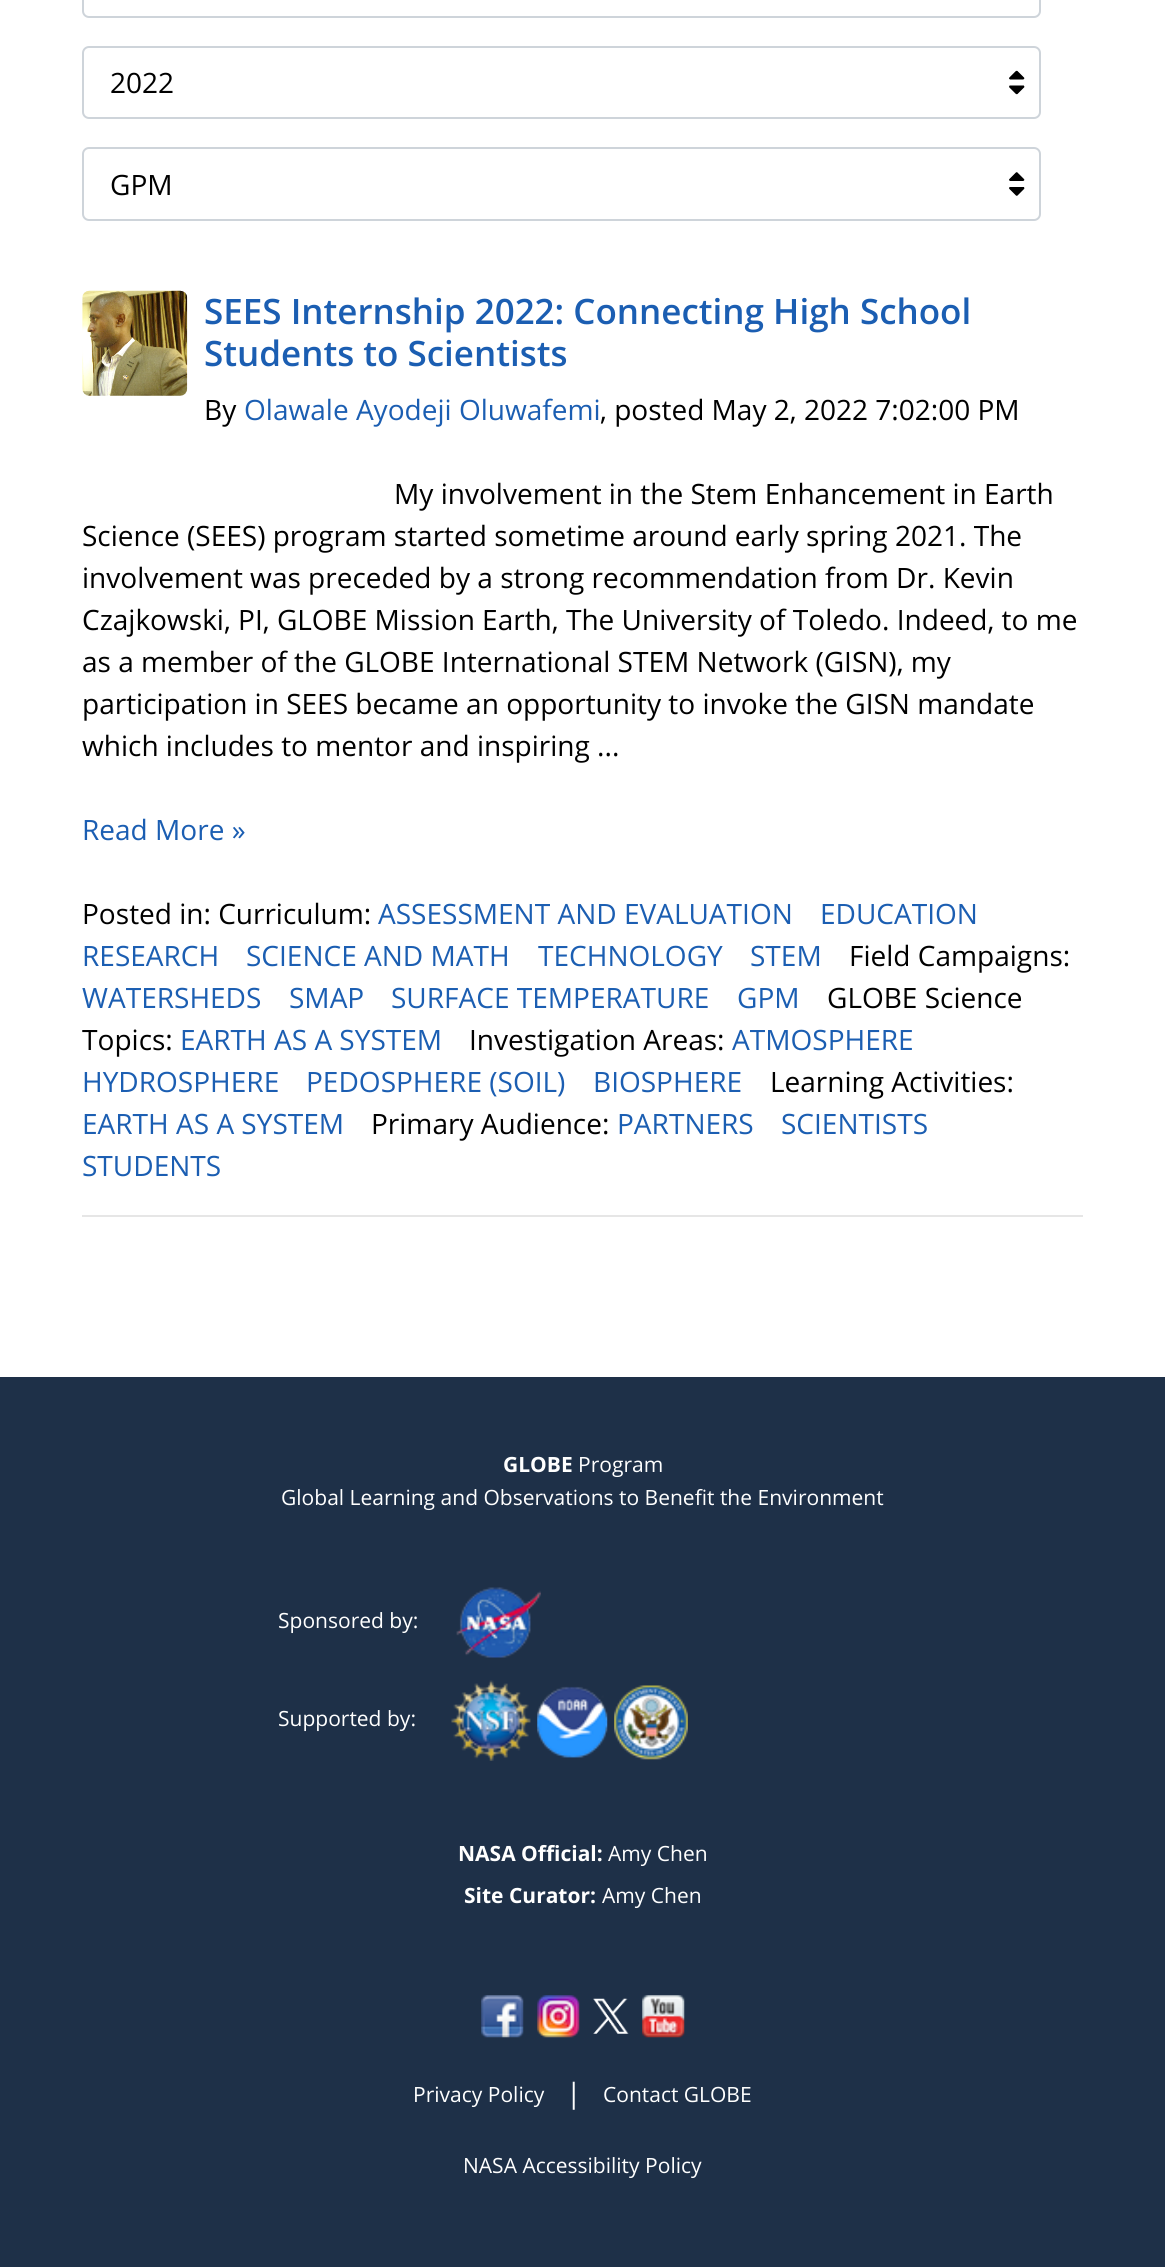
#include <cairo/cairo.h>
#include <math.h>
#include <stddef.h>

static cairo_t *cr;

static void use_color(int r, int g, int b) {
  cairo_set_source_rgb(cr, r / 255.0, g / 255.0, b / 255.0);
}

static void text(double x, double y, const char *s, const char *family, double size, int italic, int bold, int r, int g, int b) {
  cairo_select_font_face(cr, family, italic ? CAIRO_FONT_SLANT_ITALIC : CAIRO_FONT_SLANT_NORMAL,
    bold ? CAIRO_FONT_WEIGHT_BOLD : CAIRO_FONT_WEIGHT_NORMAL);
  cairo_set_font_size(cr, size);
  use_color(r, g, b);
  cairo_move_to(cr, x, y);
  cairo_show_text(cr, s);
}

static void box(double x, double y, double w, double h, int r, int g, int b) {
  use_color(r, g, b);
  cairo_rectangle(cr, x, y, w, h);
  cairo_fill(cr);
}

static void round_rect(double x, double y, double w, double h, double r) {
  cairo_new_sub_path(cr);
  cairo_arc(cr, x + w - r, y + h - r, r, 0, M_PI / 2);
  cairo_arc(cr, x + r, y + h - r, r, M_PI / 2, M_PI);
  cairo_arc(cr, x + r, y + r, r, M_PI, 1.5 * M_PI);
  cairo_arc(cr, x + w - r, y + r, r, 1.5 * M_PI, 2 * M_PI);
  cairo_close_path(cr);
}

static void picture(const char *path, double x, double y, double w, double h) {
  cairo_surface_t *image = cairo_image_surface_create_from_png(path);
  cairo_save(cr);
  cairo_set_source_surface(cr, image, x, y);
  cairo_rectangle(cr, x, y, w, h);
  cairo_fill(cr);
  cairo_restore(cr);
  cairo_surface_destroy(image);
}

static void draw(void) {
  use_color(255, 255, 255);
  cairo_paint(cr);
  round_rect(83, -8, 957, 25, 6);
  use_color(206, 212, 218);
  cairo_stroke(cr);
  round_rect(83, 47, 957, 71, 6);
  cairo_stroke(cr);
  picture("img_01.png", 1009, 70, 16, 25);
  round_rect(83, 148, 957, 72, 6);
  cairo_stroke(cr);
  picture("img_02.png", 1009, 172, 16, 24);
  picture("img_03.png", 82, 290, 106, 106);
  box(82, 1215, 1001, 2, 230, 230, 230);
  box(0, 1377, 1165, 890, 30, 48, 72);
  picture("img_04.png", 456, 1587, 85, 71);
  picture("img_05.png", 451, 1680, 80, 81);
  picture("img_06.png", 537, 1686, 71, 72);
  picture("img_07.png", 614, 1685, 74, 75);
  picture("img_08.png", 481, 1995, 43, 43);
  picture("img_09.png", 537, 1995, 43, 43);
  picture("img_10.png", 593, 1998, 36, 36);
  picture("img_11.png", 642, 1995, 43, 43);
  text(110, 93, "2022", "Open Sans", 28, 0, 0, 0, 0, 0);
  text(110, 195, "GPM", "Open Sans", 28, 0, 0, 0, 0, 0);
  text(204, 324, "SEES Internship 2022: Connecting High School", "Open Sans SemiBold", 35, 0, 0, 27, 94, 178);
  text(204, 366, "Students to Scientists", "Open Sans SemiBold", 35, 0, 0, 27, 94, 178);
  text(204, 420, "By", "Open Sans", 28, 0, 0, 0, 0, 0);
  text(244, 420, "Olawale Ayodeji Oluwafemi", "Open Sans", 28, 0, 0, 27, 94, 178);
  text(600, 420, ", posted May 2, 2022 7:02:00 PM", "Open Sans", 28, 0, 0, 0, 0, 0);
  text(394, 504, "My involvement in the Stem Enhancement in Earth", "Open Sans", 28, 0, 0, 0, 0, 0);
  text(82, 546, "Science (SEES) program started sometime around early spring 2021. The", "Open Sans", 28, 0, 0, 0, 0, 0);
  text(82, 588, "involvement was preceded by a strong recommendation from Dr. Kevin", "Open Sans", 28, 0, 0, 0, 0, 0);
  text(82, 630, "Czajkowski, PI, GLOBE Mission Earth, The University of Toledo. Indeed, to me", "Open Sans", 28, 0, 0, 0, 0, 0);
  text(82, 672, "as a member of the GLOBE International STEM Network (GISN), my", "Open Sans", 28, 0, 0, 0, 0, 0);
  text(82, 714, "participation in SEES became an opportunity to invoke the GISN mandate", "Open Sans", 28, 0, 0, 0, 0, 0);
  text(82, 756, "which includes to mentor and inspiring ...", "Open Sans", 28, 0, 0, 0, 0, 0);
  text(82, 840, "Read More »", "Open Sans", 28, 0, 0, 27, 94, 178);
  text(82, 924, "Posted in: Curriculum:", "Open Sans", 28, 0, 0, 0, 0, 0);
  text(378, 924, "ASSESSMENT AND EVALUATION", "Open Sans", 28, 0, 0, 27, 94, 178);
  text(820, 924, "EDUCATION", "Open Sans", 28, 0, 0, 27, 94, 178);
  text(82, 966, "RESEARCH", "Open Sans", 28, 0, 0, 27, 94, 178);
  text(246, 966, "SCIENCE AND MATH", "Open Sans", 28, 0, 0, 27, 94, 178);
  text(538, 966, "TECHNOLOGY", "Open Sans", 28, 0, 0, 27, 94, 178);
  text(750, 966, "STEM", "Open Sans", 28, 0, 0, 27, 94, 178);
  text(849, 966, "Field Campaigns:", "Open Sans", 28, 0, 0, 0, 0, 0);
  text(82, 1008, "WATERSHEDS", "Open Sans", 28, 0, 0, 27, 94, 178);
  text(289, 1008, "SMAP", "Open Sans", 28, 0, 0, 27, 94, 178);
  text(391, 1008, "SURFACE TEMPERATURE", "Open Sans", 28, 0, 0, 27, 94, 178);
  text(737, 1008, "GPM", "Open Sans", 28, 0, 0, 27, 94, 178);
  text(827, 1008, "GLOBE Science", "Open Sans", 28, 0, 0, 0, 0, 0);
  text(82, 1050, "Topics:", "Open Sans", 28, 0, 0, 0, 0, 0);
  text(180, 1050, "EARTH AS A SYSTEM", "Open Sans", 28, 0, 0, 27, 94, 178);
  text(469, 1050, "Investigation Areas:", "Open Sans", 28, 0, 0, 0, 0, 0);
  text(732, 1050, "ATMOSPHERE", "Open Sans", 28, 0, 0, 27, 94, 178);
  text(82, 1092, "HYDROSPHERE", "Open Sans", 28, 0, 0, 27, 94, 178);
  text(306, 1092, "PEDOSPHERE (SOIL)", "Open Sans", 28, 0, 0, 27, 94, 178);
  text(593, 1092, "BIOSPHERE", "Open Sans", 28, 0, 0, 27, 94, 178);
  text(770, 1092, "Learning Activities:", "Open Sans", 28, 0, 0, 0, 0, 0);
  text(82, 1134, "EARTH AS A SYSTEM", "Open Sans", 28, 0, 0, 27, 94, 178);
  text(371, 1134, "Primary Audience:", "Open Sans", 28, 0, 0, 0, 0, 0);
  text(617, 1134, "PARTNERS", "Open Sans", 28, 0, 0, 27, 94, 178);
  text(781, 1134, "SCIENTISTS", "Open Sans", 28, 0, 0, 27, 94, 178);
  text(82, 1176, "STUDENTS", "Open Sans", 28, 0, 0, 27, 94, 178);
  text(503, 1472, "GLOBE", "Open Sans", 21, 0, 1, 255, 255, 255);
  text(578, 1472, "Program", "Open Sans", 21, 0, 0, 255, 255, 255);
  text(281, 1505, "Global Learning and Observations to Benefit the Environment", "Open Sans", 21, 0, 0, 255, 255, 255);
  text(278, 1628, "Sponsored by:", "Open Sans", 21, 0, 0, 255, 255, 255);
  text(278, 1726, "Supported by:", "Open Sans", 21, 0, 0, 255, 255, 255);
  text(458, 1861, "NASA Official:", "Open Sans", 21, 0, 1, 255, 255, 255);
  text(608, 1861, "Amy Chen", "Open Sans", 21, 0, 0, 255, 255, 255);
  text(464, 1903, "Site Curator:", "Open Sans", 21, 0, 1, 255, 255, 255);
  text(602, 1903, "Amy Chen", "Open Sans", 21, 0, 0, 255, 255, 255);
  text(413, 2102, "Privacy Policy", "Open Sans", 21, 0, 0, 255, 255, 255);
  text(566, 2103, "|", "Open Sans", 28, 0, 0, 255, 255, 255);
  text(603, 2102, "Contact GLOBE", "Open Sans", 21, 0, 0, 255, 255, 255);
  text(463, 2173, "NASA Accessibility Policy", "Open Sans", 21, 0, 0, 255, 255, 255);
}

int main(void) {
  cairo_surface_t *surface = cairo_image_surface_create(CAIRO_FORMAT_RGB24, 1165, 2267);
  cr = cairo_create(surface);
  cairo_font_options_t *options = cairo_font_options_create();
  cairo_font_options_set_hint_metrics(options, CAIRO_HINT_METRICS_OFF);
  cairo_font_options_set_hint_style(options, CAIRO_HINT_STYLE_NONE);
  cairo_set_font_options(cr, options);
  cairo_set_miter_limit(cr, 4);
  draw();
  cairo_surface_write_to_png(surface, "out.png");
  cairo_font_options_destroy(options);
  cairo_destroy(cr);
  cairo_surface_destroy(surface);
  return 0;
}
